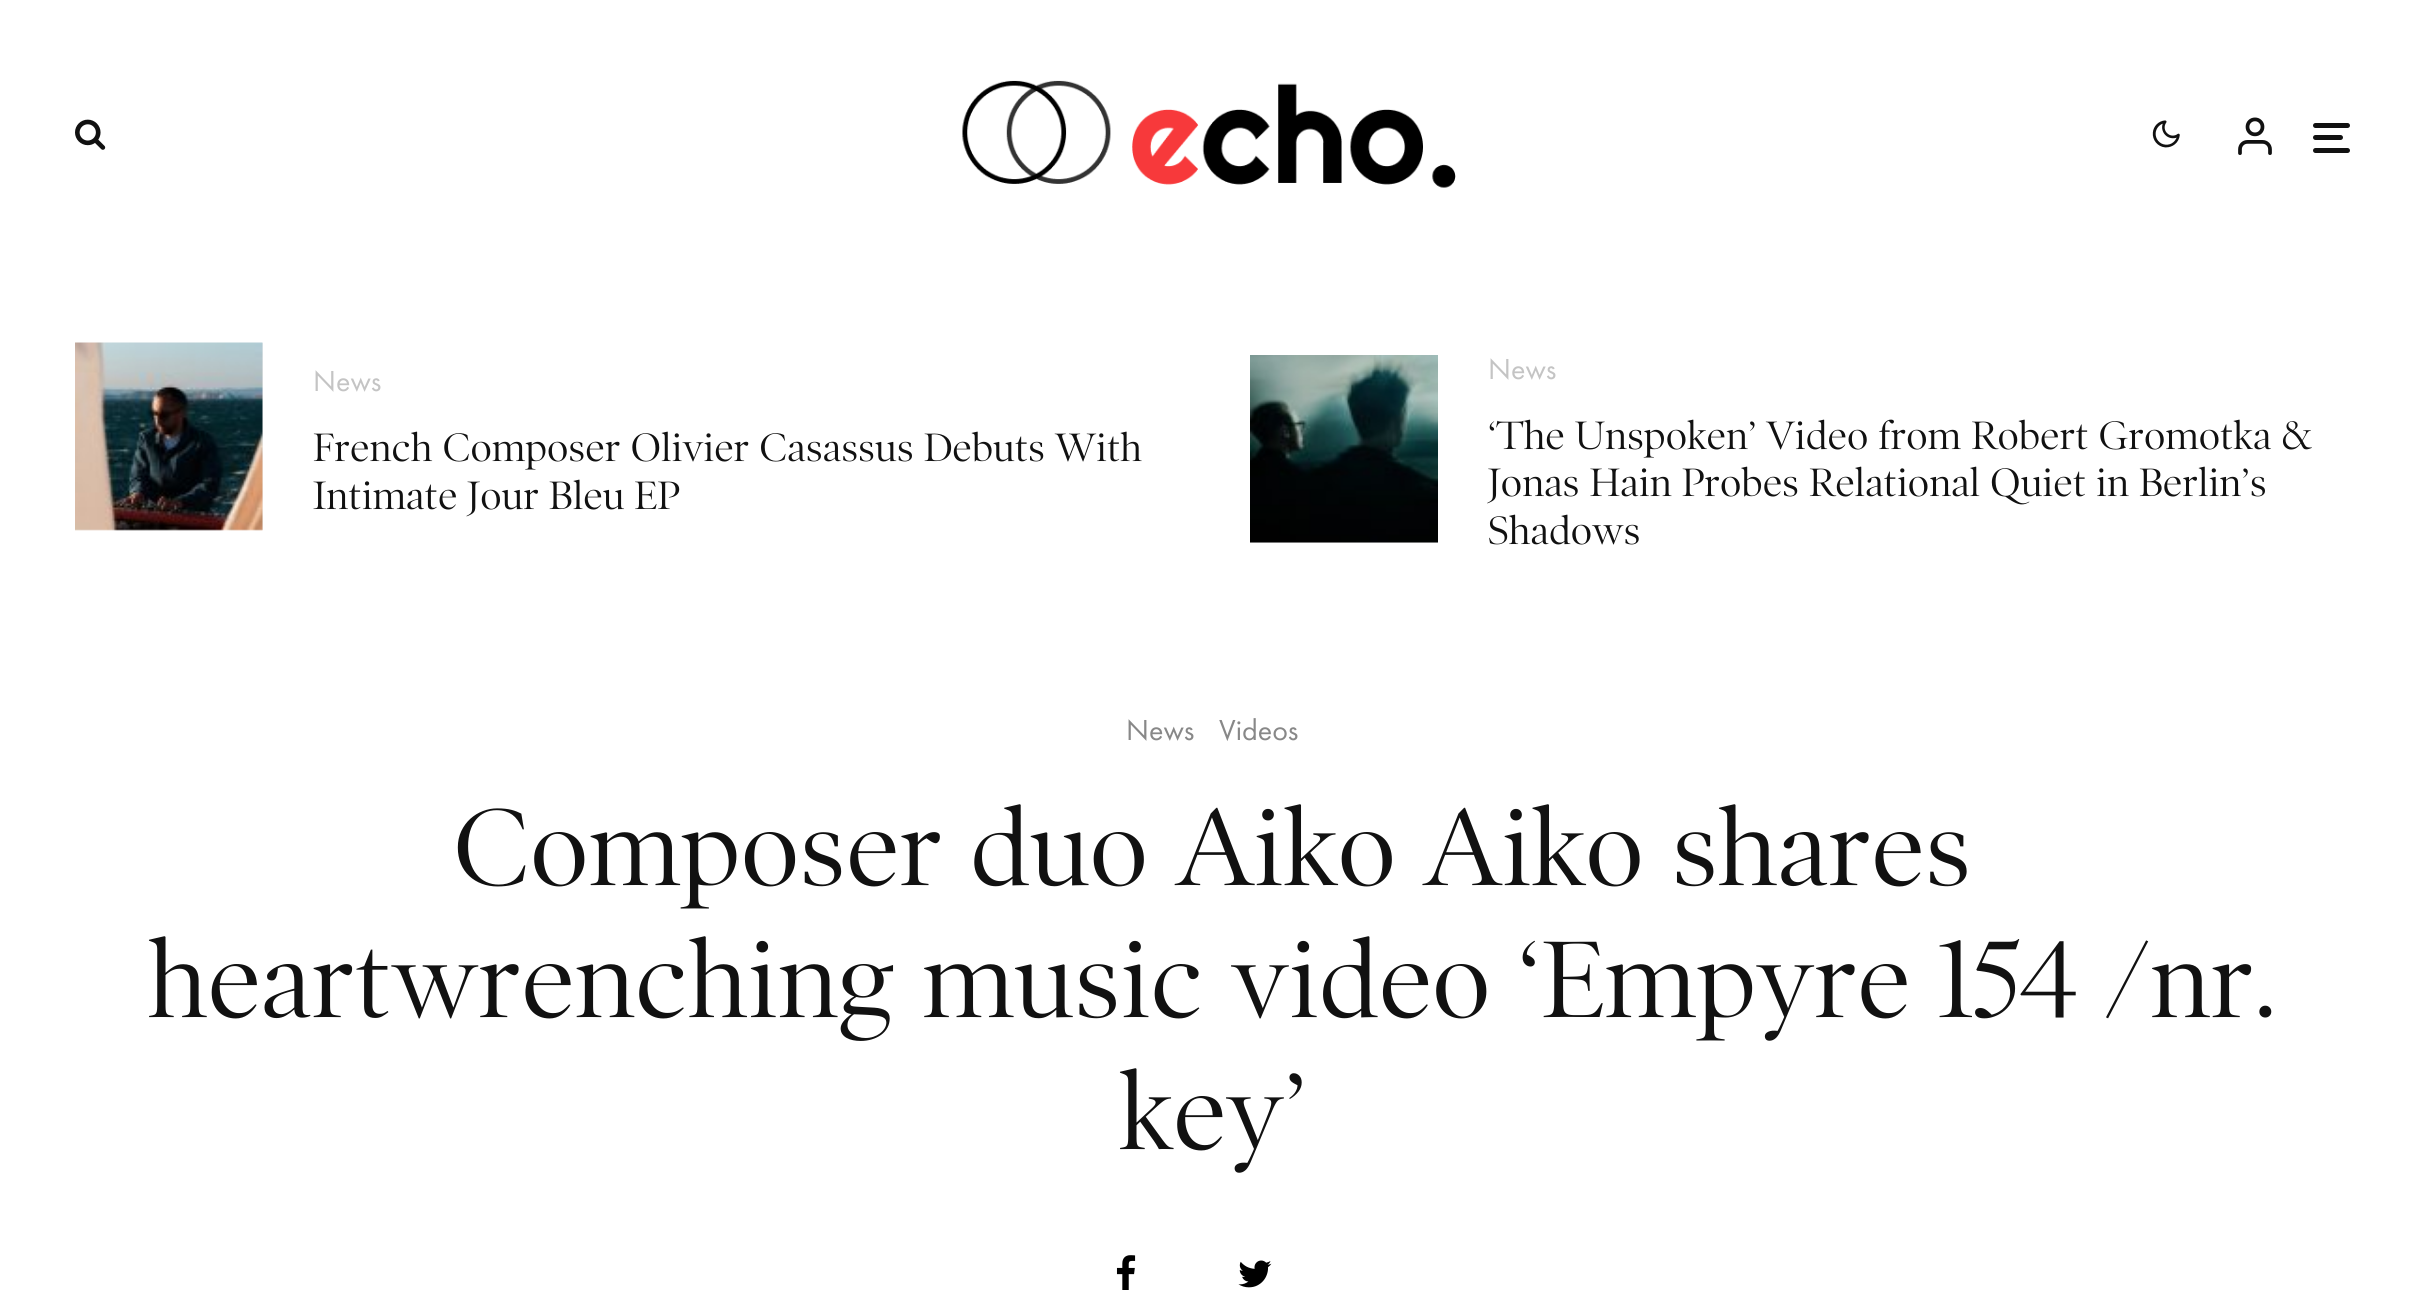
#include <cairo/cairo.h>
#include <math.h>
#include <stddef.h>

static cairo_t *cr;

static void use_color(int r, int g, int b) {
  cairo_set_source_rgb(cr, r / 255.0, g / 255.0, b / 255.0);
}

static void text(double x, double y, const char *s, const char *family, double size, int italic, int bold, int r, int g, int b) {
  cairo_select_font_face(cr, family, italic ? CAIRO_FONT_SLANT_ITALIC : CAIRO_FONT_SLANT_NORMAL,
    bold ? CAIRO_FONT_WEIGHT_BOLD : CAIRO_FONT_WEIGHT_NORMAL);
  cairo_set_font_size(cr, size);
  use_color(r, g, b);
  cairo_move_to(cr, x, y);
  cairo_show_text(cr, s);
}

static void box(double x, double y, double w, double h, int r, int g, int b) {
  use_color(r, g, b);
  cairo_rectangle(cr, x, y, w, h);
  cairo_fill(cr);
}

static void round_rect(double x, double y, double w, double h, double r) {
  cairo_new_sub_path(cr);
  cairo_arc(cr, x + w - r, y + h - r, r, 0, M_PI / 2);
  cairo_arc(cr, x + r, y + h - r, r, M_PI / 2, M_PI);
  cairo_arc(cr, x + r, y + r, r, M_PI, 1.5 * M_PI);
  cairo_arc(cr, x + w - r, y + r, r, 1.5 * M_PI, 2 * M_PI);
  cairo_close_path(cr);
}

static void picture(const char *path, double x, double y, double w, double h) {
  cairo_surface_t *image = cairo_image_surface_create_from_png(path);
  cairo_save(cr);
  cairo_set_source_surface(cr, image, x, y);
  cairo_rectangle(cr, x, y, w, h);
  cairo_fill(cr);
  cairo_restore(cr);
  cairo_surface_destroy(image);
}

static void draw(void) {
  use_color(255, 255, 255);
  cairo_paint(cr);
  picture("img_01.png", 75, 119, 31, 31);
  picture("img_02.png", 962, 80, 494, 108);
  picture("img_03.png", 2152, 120, 28, 28);
  picture("img_04.png", 2238, 117, 34, 38);
  use_color(17, 17, 17);
  round_rect(2313, 135, 30, 5, 2.5);
  cairo_fill(cr);
  round_rect(2313, 123, 37, 5, 2.5);
  cairo_fill(cr);
  round_rect(2313, 148, 37, 5, 2.5);
  cairo_fill(cr);
  box(75, 343, 188, 187, 238, 238, 238);
  picture("img_05.png", 75, 342, 188, 189);
  box(1250, 542, 188, 1, 238, 238, 238);
  picture("img_06.png", 1250, 355, 188, 188);
  picture("img_07.png", 1116, 1255, 20, 35);
  picture("img_08.png", 1238, 1260, 34, 28);
  text(313, 391, "News", "Futura PT", 30, 0, 0, 196, 196, 196);
  text(313, 461, "French Composer Olivier Casassus Debuts With", "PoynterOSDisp", 40, 0, 0, 17, 17, 17);
  text(313, 509, "Intimate Jour Bleu EP", "PoynterOSDisp", 40, 0, 0, 17, 17, 17);
  text(1488, 379, "News", "Futura PT", 30, 0, 0, 196, 196, 196);
  text(1488, 449, "‘The Unspoken’ Video from Robert Gromotka &", "PoynterOSDisp", 40, 0, 0, 17, 17, 17);
  text(1488, 496, "Jonas Hain Probes Relational Quiet in Berlin’s", "PoynterOSDisp", 40, 0, 0, 17, 17, 17);
  text(1488, 544, "Shadows", "PoynterOSDisp", 40, 0, 0, 17, 17, 17);
  text(1126, 740, "News", "Futura PT", 30, 0, 0, 136, 136, 136);
  text(1219, 740, "Videos", "Futura PT", 30, 0, 0, 136, 136, 136);
  text(453, 885, "Composer duo Aiko Aiko shares", "PoynterOSDisp", 110, 0, 0, 17, 17, 17);
  text(148, 1017, "heartwrenching music video ‘Empyre 154 /nr.", "PoynterOSDisp", 110, 0, 0, 17, 17, 17);
  text(1119, 1149, "key’", "PoynterOSDisp", 110, 0, 0, 17, 17, 17);
}

int main(void) {
  cairo_surface_t *surface = cairo_image_surface_create(CAIRO_FORMAT_RGB24, 2424, 1313);
  cr = cairo_create(surface);
  cairo_font_options_t *options = cairo_font_options_create();
  cairo_font_options_set_hint_metrics(options, CAIRO_HINT_METRICS_OFF);
  cairo_font_options_set_hint_style(options, CAIRO_HINT_STYLE_NONE);
  cairo_set_font_options(cr, options);
  cairo_set_miter_limit(cr, 4);
  draw();
  cairo_surface_write_to_png(surface, "out.png");
  cairo_font_options_destroy(options);
  cairo_destroy(cr);
  cairo_surface_destroy(surface);
  return 0;
}
